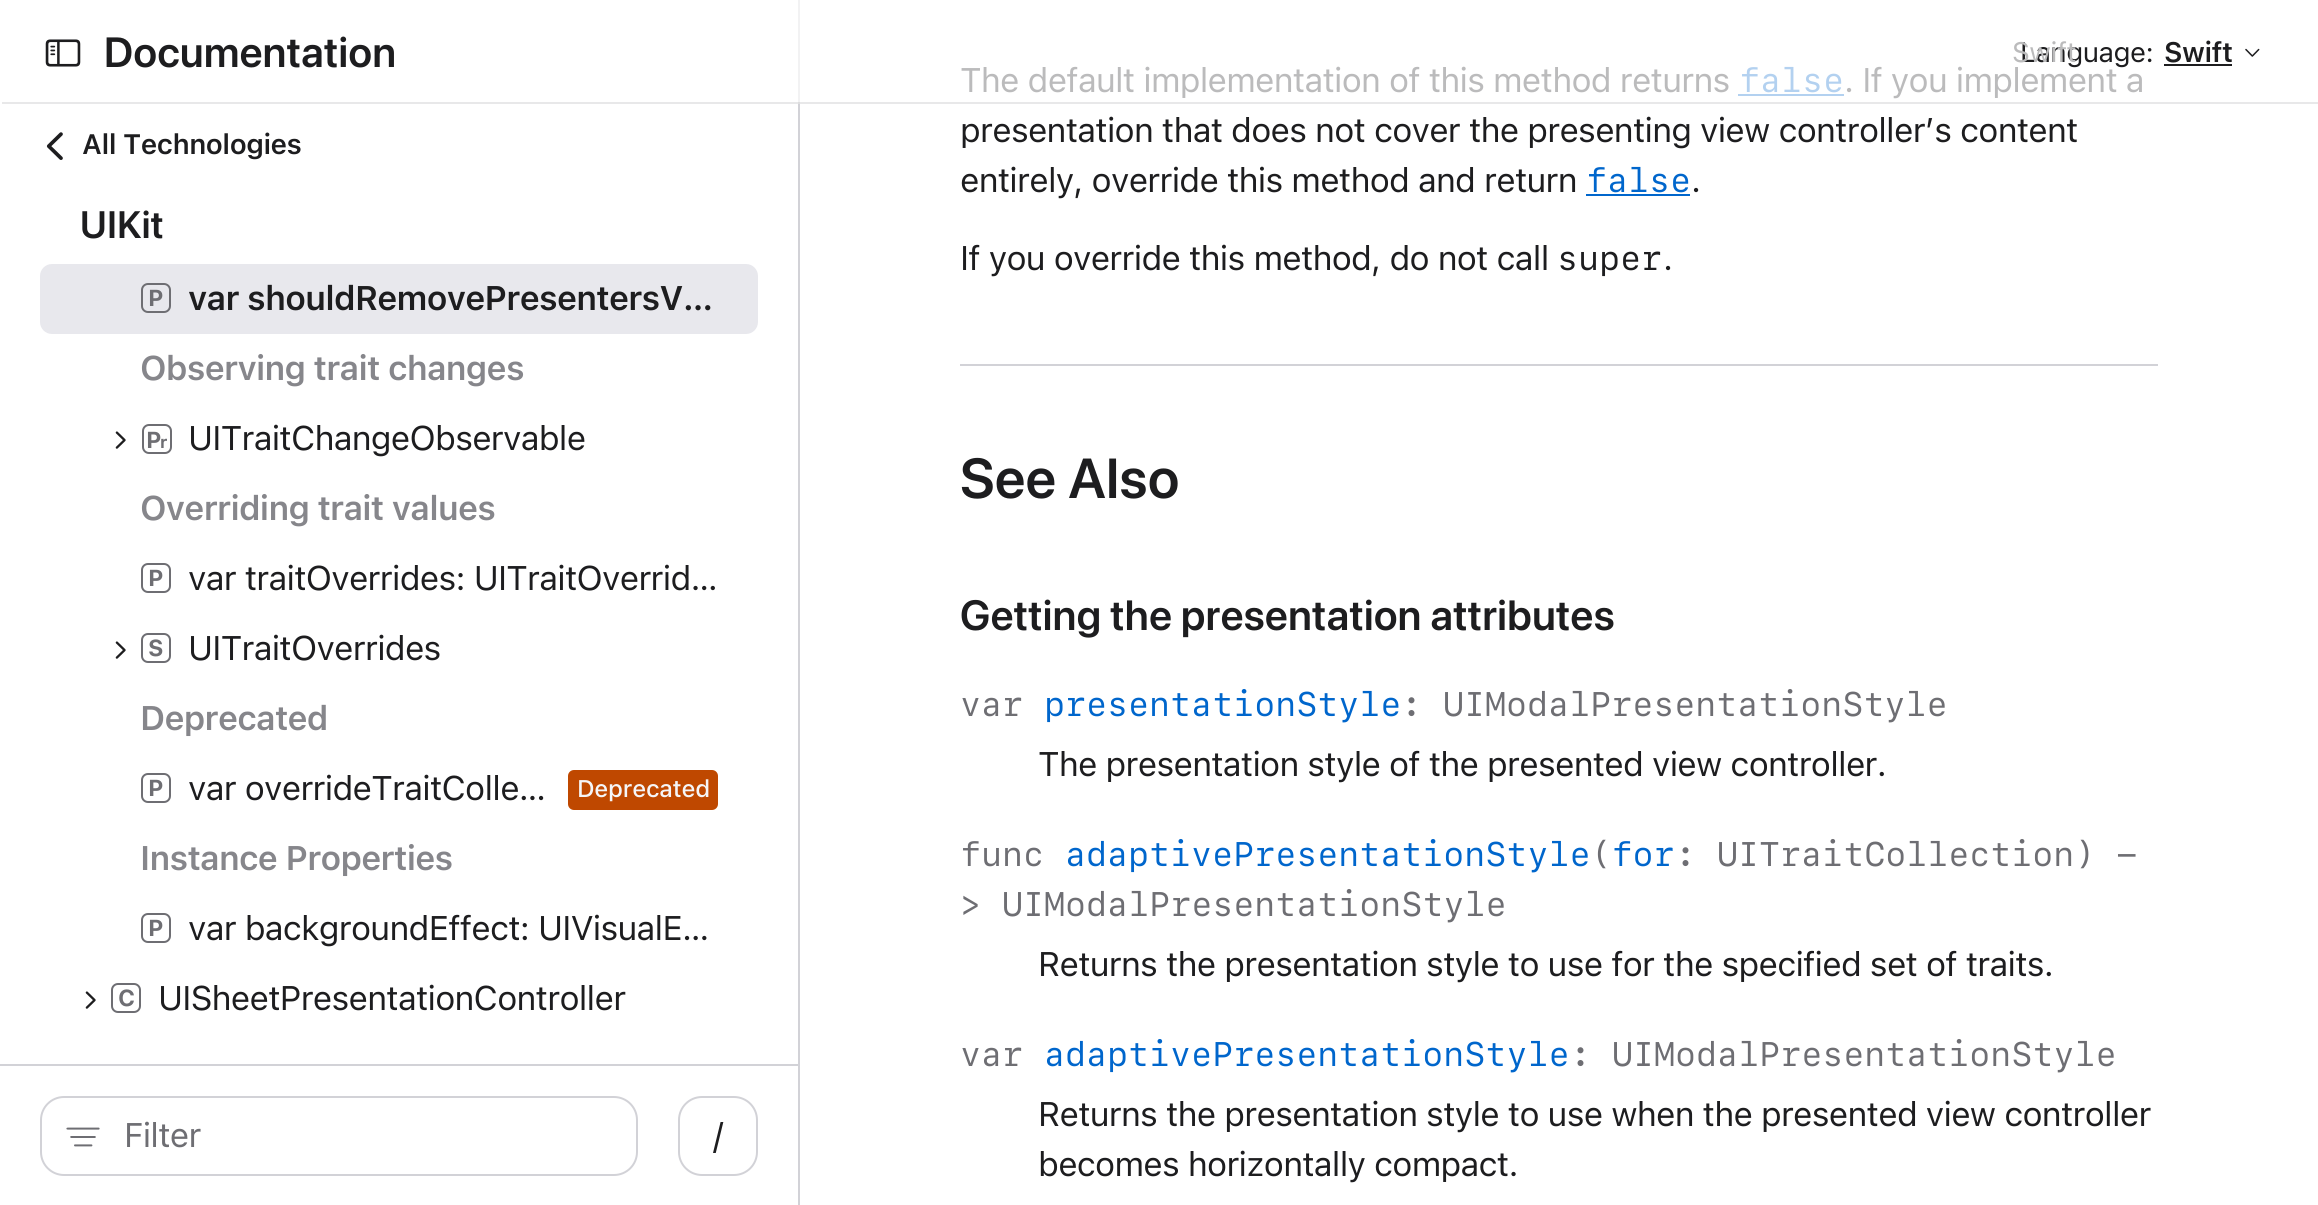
#include <cairo/cairo.h>
#include <math.h>
#include <stddef.h>

static cairo_t *cr;

static void use_color(int r, int g, int b) {
  cairo_set_source_rgb(cr, r / 255.0, g / 255.0, b / 255.0);
}

static void text(double x, double y, const char *s, const char *family, double size, int italic, int bold, int r, int g, int b) {
  cairo_select_font_face(cr, family, italic ? CAIRO_FONT_SLANT_ITALIC : CAIRO_FONT_SLANT_NORMAL,
    bold ? CAIRO_FONT_WEIGHT_BOLD : CAIRO_FONT_WEIGHT_NORMAL);
  cairo_set_font_size(cr, size);
  use_color(r, g, b);
  cairo_move_to(cr, x, y);
  cairo_show_text(cr, s);
}

static void spaced_text(double x, double y, const char *s, double letter, double word) {
  cairo_move_to(cr, x, y);
  while (*s) {
    char ch[5] = {0};
    int n = 0;
    do ch[n++] = *s++; while ((*s & 0xC0) == 0x80);
    cairo_show_text(cr, ch);
    cairo_rel_move_to(cr, letter + word * (*ch == ' '), 0);
  }
}

static void box(double x, double y, double w, double h, int r, int g, int b) {
  use_color(r, g, b);
  cairo_rectangle(cr, x, y, w, h);
  cairo_fill(cr);
}

static void round_rect(double x, double y, double w, double h, double r) {
  cairo_new_sub_path(cr);
  cairo_arc(cr, x + w - r, y + h - r, r, 0, M_PI / 2);
  cairo_arc(cr, x + r, y + h - r, r, M_PI / 2, M_PI);
  cairo_arc(cr, x + r, y + r, r, M_PI, 1.5 * M_PI);
  cairo_arc(cr, x + w - r, y + r, r, 1.5 * M_PI, 2 * M_PI);
  cairo_close_path(cr);
}

static void picture(const char *path, double x, double y, double w, double h) {
  cairo_surface_t *image = cairo_image_surface_create_from_png(path);
  cairo_save(cr);
  cairo_set_source_surface(cr, image, x, y);
  cairo_rectangle(cr, x, y, w, h);
  cairo_fill(cr);
  cairo_restore(cr);
  cairo_surface_destroy(image);
}

static void draw(void) {
  use_color(255, 255, 255);
  cairo_paint(cr);
  box(2, 102, 2316, 2, 232, 232, 233);
  picture("img_01.png", 45, 39, 36, 28);
  box(2164, 64, 68, 2, 29, 29, 31);
  picture("img_02.png", 2245, 48, 15, 9);
  box(798, 104, 2, 1101, 210, 210, 215);
  box(798, 0, 2, 104, 242, 242, 243);
  box(798, 102, 2, 2, 221, 221, 222);
  picture("img_03.png", 46, 132, 17, 28);
  use_color(232, 232, 237);
  round_rect(40, 264, 718, 70, 12);
  cairo_fill(cr);
  round_rect(142, 284, 28, 28, 6);
  use_color(110, 110, 115);
  cairo_stroke(cr);
  picture("img_04.png", 115, 431, 11, 18);
  round_rect(143, 425, 28, 28, 6);
  cairo_stroke(cr);
  round_rect(142, 564, 28, 28, 6);
  cairo_stroke(cr);
  picture("img_04.png", 115, 641, 11, 18);
  round_rect(142, 634, 28, 28, 6);
  cairo_stroke(cr);
  round_rect(142, 774, 28, 28, 6);
  cairo_stroke(cr);
  use_color(191, 72, 0);
  round_rect(568, 770, 150, 40, 6);
  cairo_fill(cr);
  round_rect(142, 914, 28, 28, 6);
  use_color(110, 110, 115);
  cairo_stroke(cr);
  picture("img_04.png", 85, 991, 11, 18);
  round_rect(112, 984, 28, 28, 6);
  cairo_stroke(cr);
  box(0, 1064, 798, 2, 210, 210, 215);
  round_rect(41, 1097, 596, 78, 23);
  cairo_stroke(cr);
  picture("img_05.png", 66, 1127, 34, 20);
  round_rect(679, 1097, 78, 78, 23);
  cairo_stroke(cr);
  box(1738, 94, 106, 2, 179, 209, 240);
  box(1586, 194, 104, 2, 0, 102, 204);
  box(960, 364, 1198, 2, 210, 210, 215);
  cairo_select_font_face(cr, "SF Pro Display SemiBold", CAIRO_FONT_SLANT_NORMAL, CAIRO_FONT_WEIGHT_NORMAL);
  cairo_set_font_size(cr, 42);
  use_color(29, 29, 31);
  spaced_text(104, 67, "Documentation", 0.45, 0);
  cairo_select_font_face(cr, "SF Pro Text SemiBold", CAIRO_FONT_SLANT_NORMAL, CAIRO_FONT_WEIGHT_NORMAL);
  cairo_set_font_size(cr, 28);
  spaced_text(2164, 62, "Swift", -0.5, 0);
  cairo_select_font_face(cr, "SF Pro Text", CAIRO_FONT_SLANT_NORMAL, CAIRO_FONT_WEIGHT_NORMAL);
  spaced_text(2020, 62, "Language:", -0.5, 0);
  use_color(187, 187, 188);
  spaced_text(2012, 62, "Swift", -0.5, 0);
  cairo_select_font_face(cr, "SF Pro Text SemiBold", CAIRO_FONT_SLANT_NORMAL, CAIRO_FONT_WEIGHT_NORMAL);
  use_color(29, 29, 31);
  spaced_text(82, 154, "All Technologies", -0.5, 0);
  cairo_select_font_face(cr, "SF Pro Display SemiBold", CAIRO_FONT_SLANT_NORMAL, CAIRO_FONT_WEIGHT_NORMAL);
  cairo_set_font_size(cr, 38);
  spaced_text(80, 238, "UIKit", 0.45, 0);
  cairo_select_font_face(cr, "SF Pro Text", CAIRO_FONT_SLANT_NORMAL, CAIRO_FONT_WEIGHT_BOLD);
  cairo_set_font_size(cr, 23);
  use_color(110, 110, 115);
  spaced_text(148, 306, "P", -1, 0);
  cairo_select_font_face(cr, "SF Pro Text SemiBold", CAIRO_FONT_SLANT_NORMAL, CAIRO_FONT_WEIGHT_NORMAL);
  cairo_set_font_size(cr, 34);
  use_color(29, 29, 31);
  spaced_text(188, 310, "var shouldRemovePresentersV…", -0.75, 0);
  use_color(134, 134, 139);
  spaced_text(140, 380, "Observing trait changes", -0.75, 0);
  cairo_select_font_face(cr, "SF Pro Text", CAIRO_FONT_SLANT_NORMAL, CAIRO_FONT_WEIGHT_BOLD);
  cairo_set_font_size(cr, 17);
  use_color(110, 110, 115);
  spaced_text(160, 448, "r", -1, 0);
  cairo_set_font_size(cr, 23);
  spaced_text(146, 448, "P", -1, 0);
  cairo_select_font_face(cr, "SF Pro Text", CAIRO_FONT_SLANT_NORMAL, CAIRO_FONT_WEIGHT_NORMAL);
  cairo_set_font_size(cr, 34);
  use_color(29, 29, 31);
  spaced_text(188, 450, "UITraitChangeObservable", -0.75, 0);
  cairo_select_font_face(cr, "SF Pro Text SemiBold", CAIRO_FONT_SLANT_NORMAL, CAIRO_FONT_WEIGHT_NORMAL);
  use_color(134, 134, 139);
  spaced_text(140, 520, "Overriding trait values", -0.75, 0);
  cairo_select_font_face(cr, "SF Pro Text", CAIRO_FONT_SLANT_NORMAL, CAIRO_FONT_WEIGHT_BOLD);
  cairo_set_font_size(cr, 23);
  use_color(110, 110, 115);
  spaced_text(148, 586, "P", -1, 0);
  cairo_select_font_face(cr, "SF Pro Text", CAIRO_FONT_SLANT_NORMAL, CAIRO_FONT_WEIGHT_NORMAL);
  cairo_set_font_size(cr, 34);
  use_color(29, 29, 31);
  spaced_text(188, 590, "var traitOverrides: UITraitOverrid…", -0.75, 0);
  cairo_select_font_face(cr, "SF Pro Text", CAIRO_FONT_SLANT_NORMAL, CAIRO_FONT_WEIGHT_BOLD);
  cairo_set_font_size(cr, 23);
  use_color(110, 110, 115);
  spaced_text(148, 656, "S", -1, 0);
  cairo_select_font_face(cr, "SF Pro Text", CAIRO_FONT_SLANT_NORMAL, CAIRO_FONT_WEIGHT_NORMAL);
  cairo_set_font_size(cr, 34);
  use_color(29, 29, 31);
  spaced_text(188, 660, "UITraitOverrides", -0.75, 0);
  cairo_select_font_face(cr, "SF Pro Text SemiBold", CAIRO_FONT_SLANT_NORMAL, CAIRO_FONT_WEIGHT_NORMAL);
  use_color(134, 134, 139);
  spaced_text(140, 730, "Deprecated", -0.75, 0);
  cairo_select_font_face(cr, "SF Pro Text", CAIRO_FONT_SLANT_NORMAL, CAIRO_FONT_WEIGHT_BOLD);
  cairo_set_font_size(cr, 23);
  use_color(110, 110, 115);
  spaced_text(148, 796, "P", -1, 0);
  cairo_select_font_face(cr, "SF Pro Text", CAIRO_FONT_SLANT_NORMAL, CAIRO_FONT_WEIGHT_NORMAL);
  cairo_set_font_size(cr, 34);
  use_color(29, 29, 31);
  spaced_text(188, 800, "var overrideTraitColle…", -0.75, 0);
  cairo_select_font_face(cr, "SF Pro Text Medium", CAIRO_FONT_SLANT_NORMAL, CAIRO_FONT_WEIGHT_NORMAL);
  cairo_set_font_size(cr, 24);
  use_color(245, 245, 247);
  spaced_text(577, 797, "Deprecated", -0.25, 0);
  cairo_select_font_face(cr, "SF Pro Text SemiBold", CAIRO_FONT_SLANT_NORMAL, CAIRO_FONT_WEIGHT_NORMAL);
  cairo_set_font_size(cr, 34);
  use_color(134, 134, 139);
  spaced_text(140, 870, "Instance Properties", -0.75, 0);
  cairo_select_font_face(cr, "SF Pro Text", CAIRO_FONT_SLANT_NORMAL, CAIRO_FONT_WEIGHT_BOLD);
  cairo_set_font_size(cr, 23);
  use_color(110, 110, 115);
  spaced_text(148, 936, "P", -1, 0);
  cairo_select_font_face(cr, "SF Pro Text", CAIRO_FONT_SLANT_NORMAL, CAIRO_FONT_WEIGHT_NORMAL);
  cairo_set_font_size(cr, 34);
  use_color(29, 29, 31);
  spaced_text(188, 940, "var backgroundEffect: UIVisualE…", -0.75, 0);
  cairo_select_font_face(cr, "SF Pro Text", CAIRO_FONT_SLANT_NORMAL, CAIRO_FONT_WEIGHT_BOLD);
  cairo_set_font_size(cr, 23);
  use_color(110, 110, 115);
  spaced_text(118, 1006, "C", -1, 0);
  cairo_select_font_face(cr, "SF Pro Text", CAIRO_FONT_SLANT_NORMAL, CAIRO_FONT_WEIGHT_NORMAL);
  cairo_set_font_size(cr, 34);
  use_color(29, 29, 31);
  spaced_text(158, 1010, "UISheetPresentationController", -0.75, 0);
  use_color(110, 110, 115);
  spaced_text(124, 1147, "Filter", -0.75, 0);
  text(713, 1147, "/", "SF Pro Text", 34, 0, 0, 29, 29, 31);
  use_color(187, 187, 188);
  spaced_text(960, 92, "The default implementation of this method returns", -0.75, 0);
  text(1739, 92, "false", "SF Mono", 34, 0, 0, 179, 209, 240);
  cairo_select_font_face(cr, "SF Pro Text", CAIRO_FONT_SLANT_NORMAL, CAIRO_FONT_WEIGHT_NORMAL);
  use_color(187, 187, 188);
  spaced_text(1844, 92, ". If you implement a", -0.75, 0);
  use_color(29, 29, 31);
  spaced_text(960, 142, "presentation that does not cover the presenting view controller’s content", -0.75, 0);
  spaced_text(960, 192, "entirely, override this method and return", -0.75, 0);
  text(1586, 192, "false", "SF Mono", 34, 0, 0, 0, 102, 204);
  cairo_select_font_face(cr, "SF Pro Text", CAIRO_FONT_SLANT_NORMAL, CAIRO_FONT_WEIGHT_NORMAL);
  use_color(29, 29, 31);
  spaced_text(1691, 192, ".", -0.75, 0);
  spaced_text(960, 270, "If you override this method, do not call", -0.75, 0);
  text(1557, 270, "super", "SF Mono", 34, 0, 0, 29, 29, 31);
  cairo_select_font_face(cr, "SF Pro Text", CAIRO_FONT_SLANT_NORMAL, CAIRO_FONT_WEIGHT_NORMAL);
  spaced_text(1663, 270, ".", -0.75, 0);
  cairo_select_font_face(cr, "SF Pro Display SemiBold", CAIRO_FONT_SLANT_NORMAL, CAIRO_FONT_WEIGHT_NORMAL);
  cairo_set_font_size(cr, 56);
  spaced_text(960, 498, "See Also", 0.5, 0);
  cairo_set_font_size(cr, 42);
  spaced_text(960, 630, "Getting the presentation attributes", 0.45, 0);
  text(960, 716, "var", "SF Mono", 34, 0, 0, 110, 110, 115);
  text(1044, 716, "presentationStyle", "SF Mono", 34, 0, 0, 0, 102, 204);
  text(1401, 716, ": UIModalPresentationStyle", "SF Mono", 34, 0, 0, 110, 110, 115);
  cairo_select_font_face(cr, "SF Pro Text", CAIRO_FONT_SLANT_NORMAL, CAIRO_FONT_WEIGHT_NORMAL);
  use_color(29, 29, 31);
  spaced_text(1038, 776, "The presentation style of the presented view controller.", -0.75, 0);
  text(1065, 866, "adaptivePresentationStyle for", "SF Mono", 34, 0, 0, 0, 102, 204);
  text(1675, 866, ": UITraitCollection) -", "SF Mono", 34, 0, 0, 110, 110, 115);
  text(960, 866, "func", "SF Mono", 34, 0, 0, 110, 110, 115);
  text(1591, 866, "(", "SF Mono", 34, 0, 0, 110, 110, 115);
  text(960, 916, "> UIModalPresentationStyle", "SF Mono", 34, 0, 0, 110, 110, 115);
  cairo_select_font_face(cr, "SF Pro Text", CAIRO_FONT_SLANT_NORMAL, CAIRO_FONT_WEIGHT_NORMAL);
  use_color(29, 29, 31);
  spaced_text(1038, 976, "Returns the presentation style to use for the specified set of traits.", -0.75, 0);
  text(960, 1066, "var", "SF Mono", 34, 0, 0, 110, 110, 115);
  text(1044, 1066, "adaptivePresentationStyle", "SF Mono", 34, 0, 0, 0, 102, 204);
  text(1570, 1066, ": UIModalPresentationStyle", "SF Mono", 34, 0, 0, 110, 110, 115);
  cairo_select_font_face(cr, "SF Pro Text", CAIRO_FONT_SLANT_NORMAL, CAIRO_FONT_WEIGHT_NORMAL);
  use_color(29, 29, 31);
  spaced_text(1038, 1126, "Returns the presentation style to use when the presented view controller", -0.75, 0);
  spaced_text(1038, 1176, "becomes horizontally compact.", -0.75, 0);
}

int main(void) {
  cairo_surface_t *surface = cairo_image_surface_create(CAIRO_FORMAT_RGB24, 2318, 1205);
  cr = cairo_create(surface);
  cairo_font_options_t *options = cairo_font_options_create();
  cairo_font_options_set_hint_metrics(options, CAIRO_HINT_METRICS_OFF);
  cairo_font_options_set_hint_style(options, CAIRO_HINT_STYLE_NONE);
  cairo_set_font_options(cr, options);
  cairo_set_miter_limit(cr, 4);
  draw();
  cairo_surface_write_to_png(surface, "out.png");
  cairo_font_options_destroy(options);
  cairo_destroy(cr);
  cairo_surface_destroy(surface);
  return 0;
}
